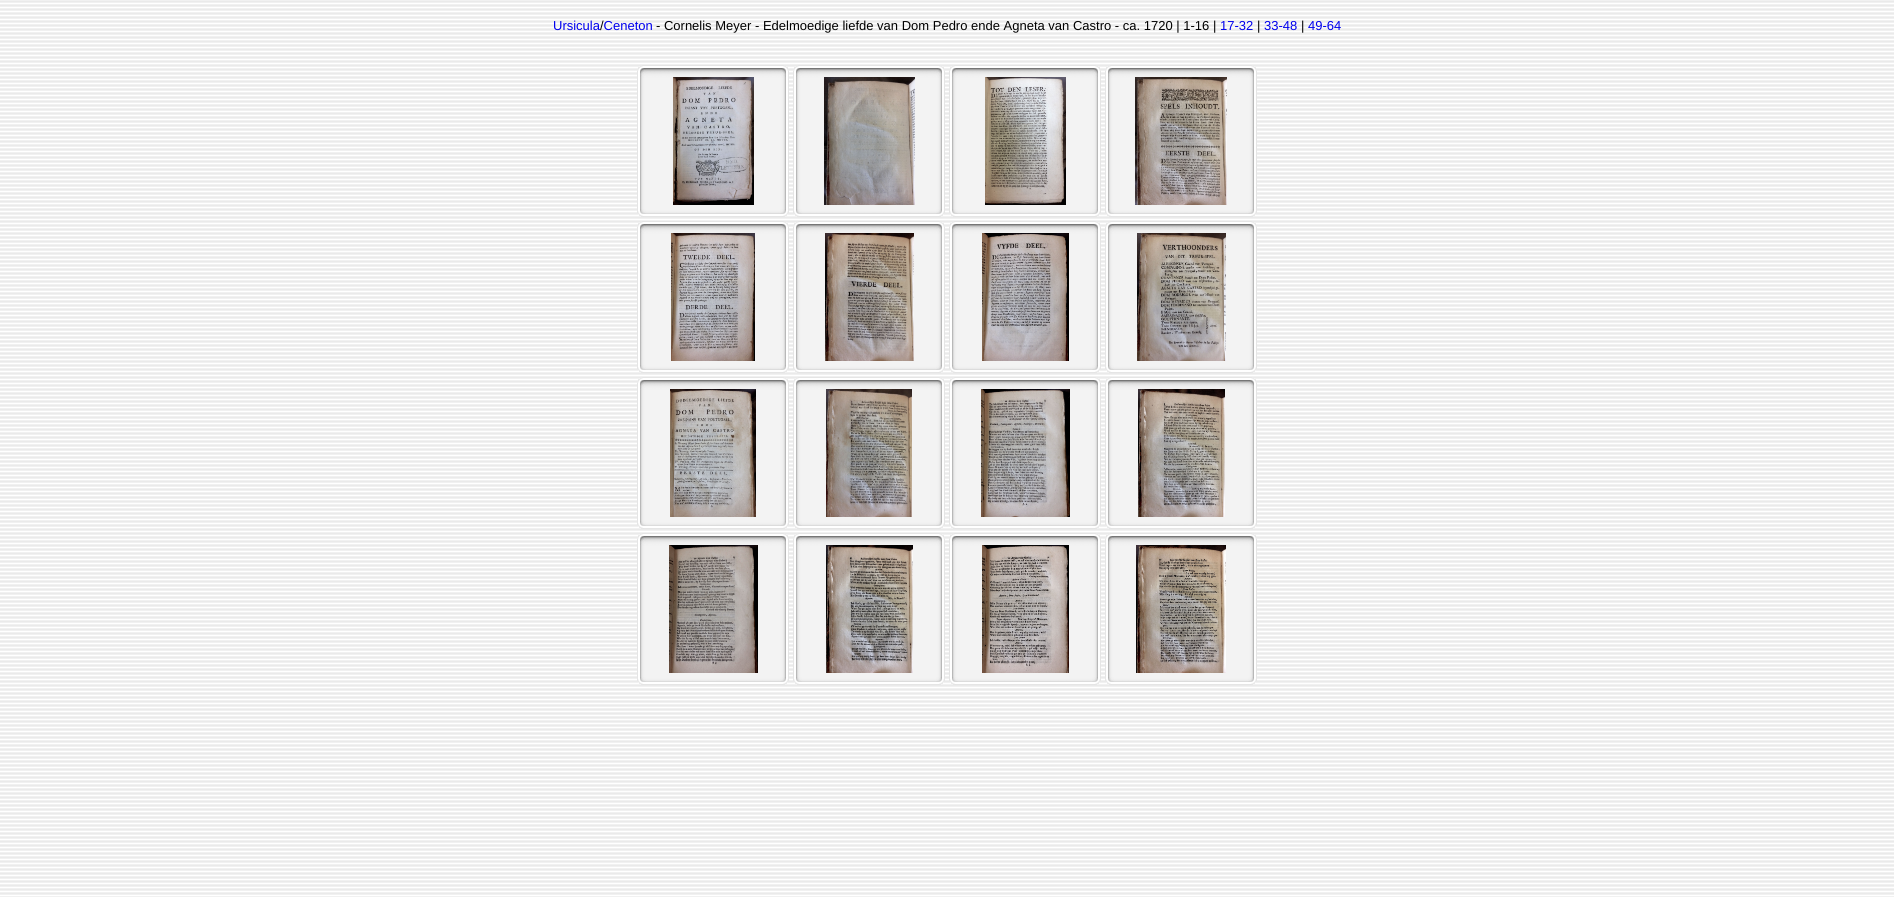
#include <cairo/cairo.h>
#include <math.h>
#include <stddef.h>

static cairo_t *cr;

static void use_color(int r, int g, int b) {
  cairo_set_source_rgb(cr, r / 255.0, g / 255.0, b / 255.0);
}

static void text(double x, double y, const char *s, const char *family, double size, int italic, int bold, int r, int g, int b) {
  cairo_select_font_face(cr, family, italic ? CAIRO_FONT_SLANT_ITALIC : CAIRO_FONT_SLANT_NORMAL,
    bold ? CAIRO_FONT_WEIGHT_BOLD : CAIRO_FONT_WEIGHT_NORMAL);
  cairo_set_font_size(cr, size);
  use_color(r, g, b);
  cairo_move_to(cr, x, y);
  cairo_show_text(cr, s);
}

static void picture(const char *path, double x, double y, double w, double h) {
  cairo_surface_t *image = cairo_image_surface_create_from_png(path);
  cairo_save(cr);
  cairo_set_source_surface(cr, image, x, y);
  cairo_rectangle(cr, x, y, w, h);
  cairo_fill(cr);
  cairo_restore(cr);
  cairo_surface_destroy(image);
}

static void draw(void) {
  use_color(255, 255, 255);
  cairo_paint(cr);
  picture("img_01.png", 0, 0, 1894, 897);
  picture("img_02.png", 637, 65, 152, 152);
  picture("img_03.png", 673, 77, 81, 128);
  picture("img_02.png", 793, 65, 152, 152);
  picture("img_04.png", 824, 77, 91, 128);
  picture("img_02.png", 949, 65, 152, 152);
  picture("img_05.png", 985, 77, 81, 128);
  picture("img_02.png", 1105, 65, 152, 152);
  picture("img_06.png", 1135, 77, 92, 128);
  picture("img_07.png", 637, 221, 152, 152);
  picture("img_08.png", 671, 233, 84, 128);
  picture("img_07.png", 793, 221, 152, 152);
  picture("img_09.png", 825, 233, 89, 128);
  picture("img_07.png", 949, 221, 152, 152);
  picture("img_10.png", 982, 233, 87, 128);
  picture("img_07.png", 1105, 221, 152, 152);
  picture("img_11.png", 1137, 233, 89, 128);
  picture("img_07.png", 637, 377, 152, 152);
  picture("img_12.png", 670, 389, 86, 128);
  picture("img_07.png", 793, 377, 152, 152);
  picture("img_13.png", 826, 389, 86, 128);
  picture("img_07.png", 949, 377, 152, 152);
  picture("img_14.png", 981, 389, 89, 128);
  picture("img_07.png", 1105, 377, 152, 152);
  picture("img_15.png", 1138, 389, 87, 128);
  picture("img_02.png", 637, 533, 152, 152);
  picture("img_16.png", 669, 545, 89, 128);
  picture("img_02.png", 793, 533, 152, 152);
  picture("img_17.png", 826, 545, 87, 128);
  picture("img_02.png", 949, 533, 152, 152);
  picture("img_18.png", 982, 545, 87, 128);
  picture("img_02.png", 1105, 533, 152, 152);
  picture("img_19.png", 1136, 545, 90, 128);
  text(553, 30, "Ursicula Ceneton", "Liberation Sans", 13, 0, 0, 0, 0, 238);
  text(600, 30, "/", "Liberation Sans", 13, 0, 0, 0, 0, 0);
  text(656, 30, "- Cornelis Meyer - Edelmoedige liefde van Dom Pedro ende Agneta van Castro - ca. 1720 | 1-16 |", "Liberation Sans", 13, 0, 0, 0, 0, 0);
  text(1220, 30, "17-32", "Liberation Sans", 13, 0, 0, 0, 0, 238);
  text(1257, 30, "|", "Liberation Sans", 13, 0, 0, 0, 0, 0);
  text(1264, 30, "33-48", "Liberation Sans", 13, 0, 0, 0, 0, 238);
  text(1301, 30, "|", "Liberation Sans", 13, 0, 0, 0, 0, 0);
  text(1308, 30, "49-64", "Liberation Sans", 13, 0, 0, 0, 0, 238);
}

int main(void) {
  cairo_surface_t *surface = cairo_image_surface_create(CAIRO_FORMAT_RGB24, 1894, 897);
  cr = cairo_create(surface);
  cairo_font_options_t *options = cairo_font_options_create();
  cairo_font_options_set_hint_metrics(options, CAIRO_HINT_METRICS_OFF);
  cairo_font_options_set_hint_style(options, CAIRO_HINT_STYLE_NONE);
  cairo_set_font_options(cr, options);
  cairo_set_miter_limit(cr, 4);
  draw();
  cairo_surface_write_to_png(surface, "out.png");
  cairo_font_options_destroy(options);
  cairo_destroy(cr);
  cairo_surface_destroy(surface);
  return 0;
}
